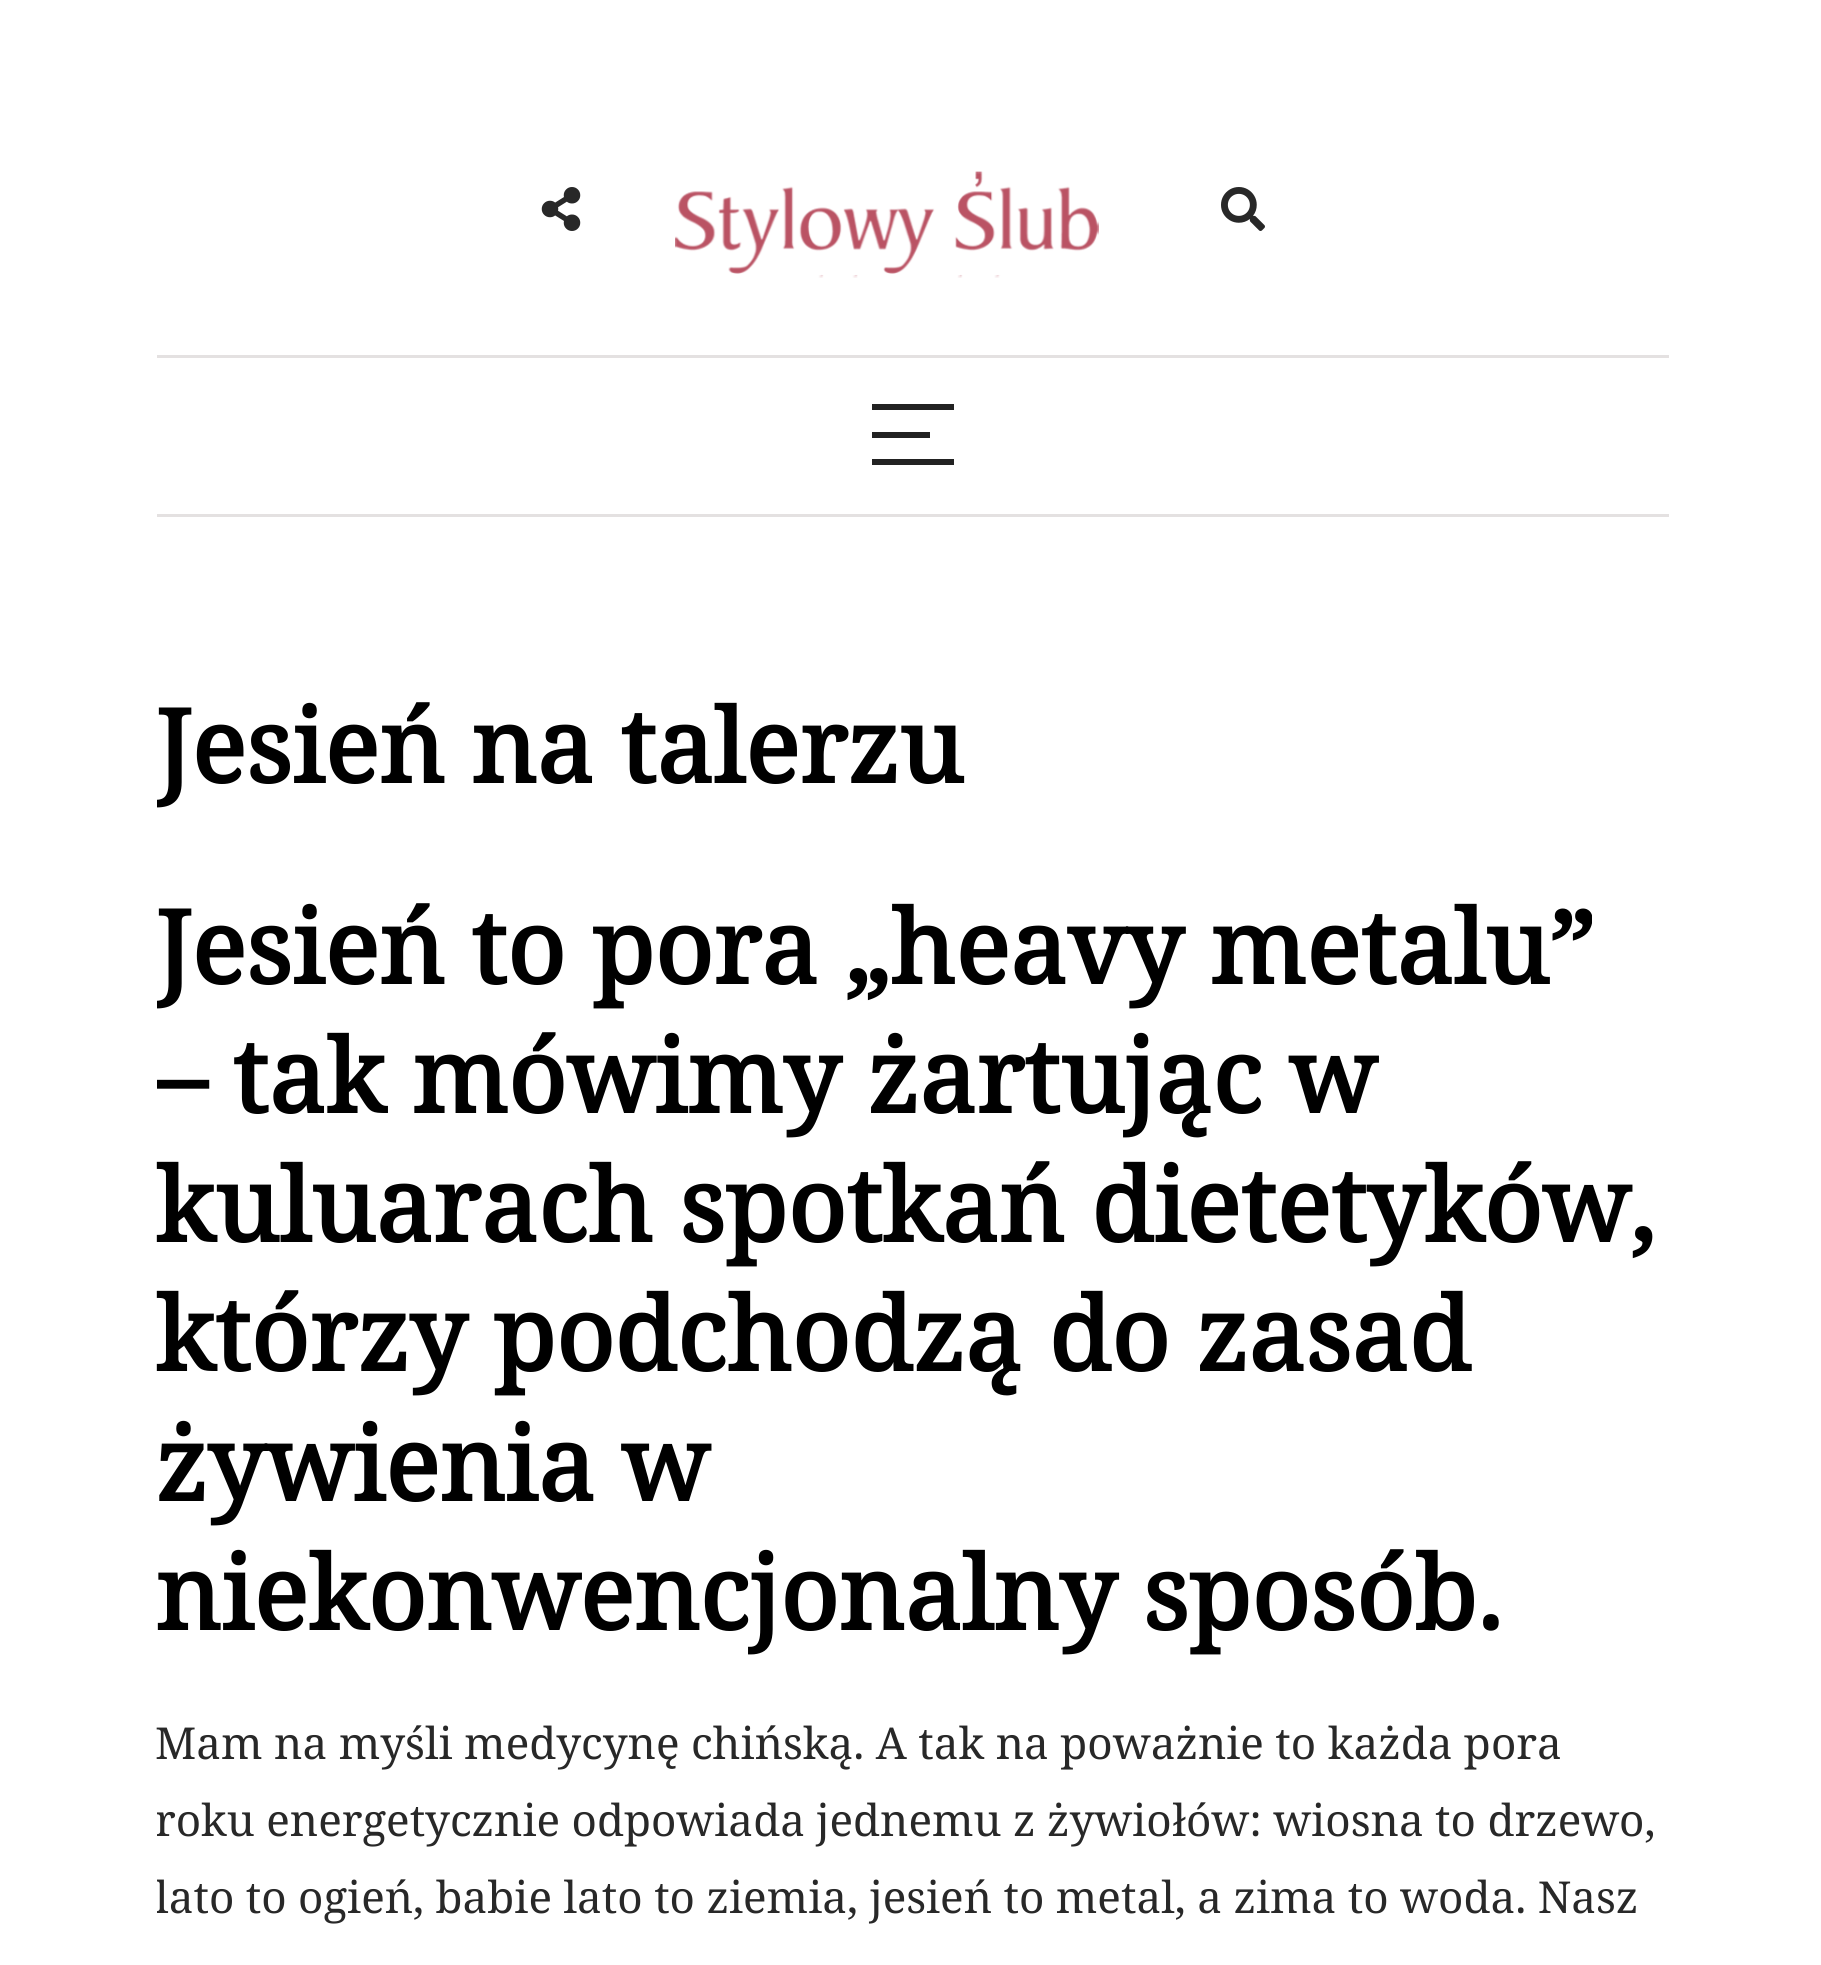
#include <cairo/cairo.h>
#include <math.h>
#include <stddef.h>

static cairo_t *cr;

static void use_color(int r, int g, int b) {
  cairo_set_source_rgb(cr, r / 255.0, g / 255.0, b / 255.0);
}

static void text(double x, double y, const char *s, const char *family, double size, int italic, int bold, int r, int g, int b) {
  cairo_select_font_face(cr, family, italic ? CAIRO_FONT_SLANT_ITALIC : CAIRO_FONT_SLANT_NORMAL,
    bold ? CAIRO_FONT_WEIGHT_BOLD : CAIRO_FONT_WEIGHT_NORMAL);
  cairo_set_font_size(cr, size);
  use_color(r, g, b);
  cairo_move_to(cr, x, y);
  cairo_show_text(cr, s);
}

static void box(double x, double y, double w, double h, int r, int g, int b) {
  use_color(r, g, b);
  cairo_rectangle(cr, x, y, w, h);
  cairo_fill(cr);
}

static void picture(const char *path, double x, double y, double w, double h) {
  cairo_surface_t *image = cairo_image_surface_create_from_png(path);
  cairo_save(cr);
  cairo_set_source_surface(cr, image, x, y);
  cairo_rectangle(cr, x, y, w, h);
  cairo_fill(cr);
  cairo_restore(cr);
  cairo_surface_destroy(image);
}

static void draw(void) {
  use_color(255, 255, 255);
  cairo_paint(cr);
  picture("img_01.png", 541, 187, 40, 44);
  picture("img_02.png", 675, 171, 424, 107);
  picture("img_03.png", 1221, 187, 44, 44);
  box(157, 355, 1512, 3, 228, 225, 225);
  box(157, 514, 1512, 3, 228, 225, 225);
  box(872, 404, 82, 6, 34, 34, 34);
  box(872, 432, 58, 6, 34, 34, 34);
  box(872, 459, 82, 6, 34, 34, 34);
  cairo_save(cr);
  cairo_rectangle(cr, 157, 679, 1512, 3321);
  cairo_clip(cr);
  text(155, 783, "Jesień na talerzu", "Noto Serif", 101.75, 0, 1, 0, 0, 0);
  cairo_restore(cr);
  cairo_save(cr);
  cairo_rectangle(cr, 157, 880, 1512, 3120);
  cairo_clip(cr);
  text(155, 984, "Jesień to pora „heavy metalu”", "Noto Serif", 101.75, 0, 1, 0, 0, 0);
  text(155, 1113, "– tak mówimy żartując w", "Noto Serif", 101.75, 0, 1, 0, 0, 0);
  cairo_restore(cr);
  text(155, 1242, "kuluarach spotkań dietetyków,", "Noto Serif", 101.75, 0, 1, 0, 0, 0);
  text(155, 1371, "którzy podchodzą do zasad", "Noto Serif", 101.75, 0, 1, 0, 0, 0);
  text(155, 1501, "żywienia w", "Noto Serif", 101.75, 0, 1, 0, 0, 0);
  text(155, 1630, "niekonwencjonalny sposób.", "Noto Serif", 101.75, 0, 1, 0, 0, 0);
  text(155, 1759, "Mam na myśli medycynę chińską. A tak na poważnie to każda pora", "Noto Serif", 44, 0, 0, 40, 40, 40);
  cairo_save(cr);
  cairo_rectangle(cr, 157, 880, 1512, 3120);
  cairo_clip(cr);
  text(155, 1836, "roku energetycznie odpowiada jednemu z żywiołów: wiosna to drzewo,", "Noto Serif", 44, 0, 0, 40, 40, 40);
  text(155, 1913, "lato to ogień, babie lato to ziemia, jesień to metal, a zima to woda. Nasz", "Noto Serif", 44, 0, 0, 40, 40, 40);
  cairo_restore(cr);
}

int main(void) {
  cairo_surface_t *surface = cairo_image_surface_create(CAIRO_FORMAT_RGB24, 1821, 1965);
  cr = cairo_create(surface);
  cairo_font_options_t *options = cairo_font_options_create();
  cairo_font_options_set_hint_metrics(options, CAIRO_HINT_METRICS_OFF);
  cairo_font_options_set_hint_style(options, CAIRO_HINT_STYLE_NONE);
  cairo_set_font_options(cr, options);
  cairo_set_miter_limit(cr, 4);
  draw();
  cairo_surface_write_to_png(surface, "out.png");
  cairo_font_options_destroy(options);
  cairo_destroy(cr);
  cairo_surface_destroy(surface);
  return 0;
}
